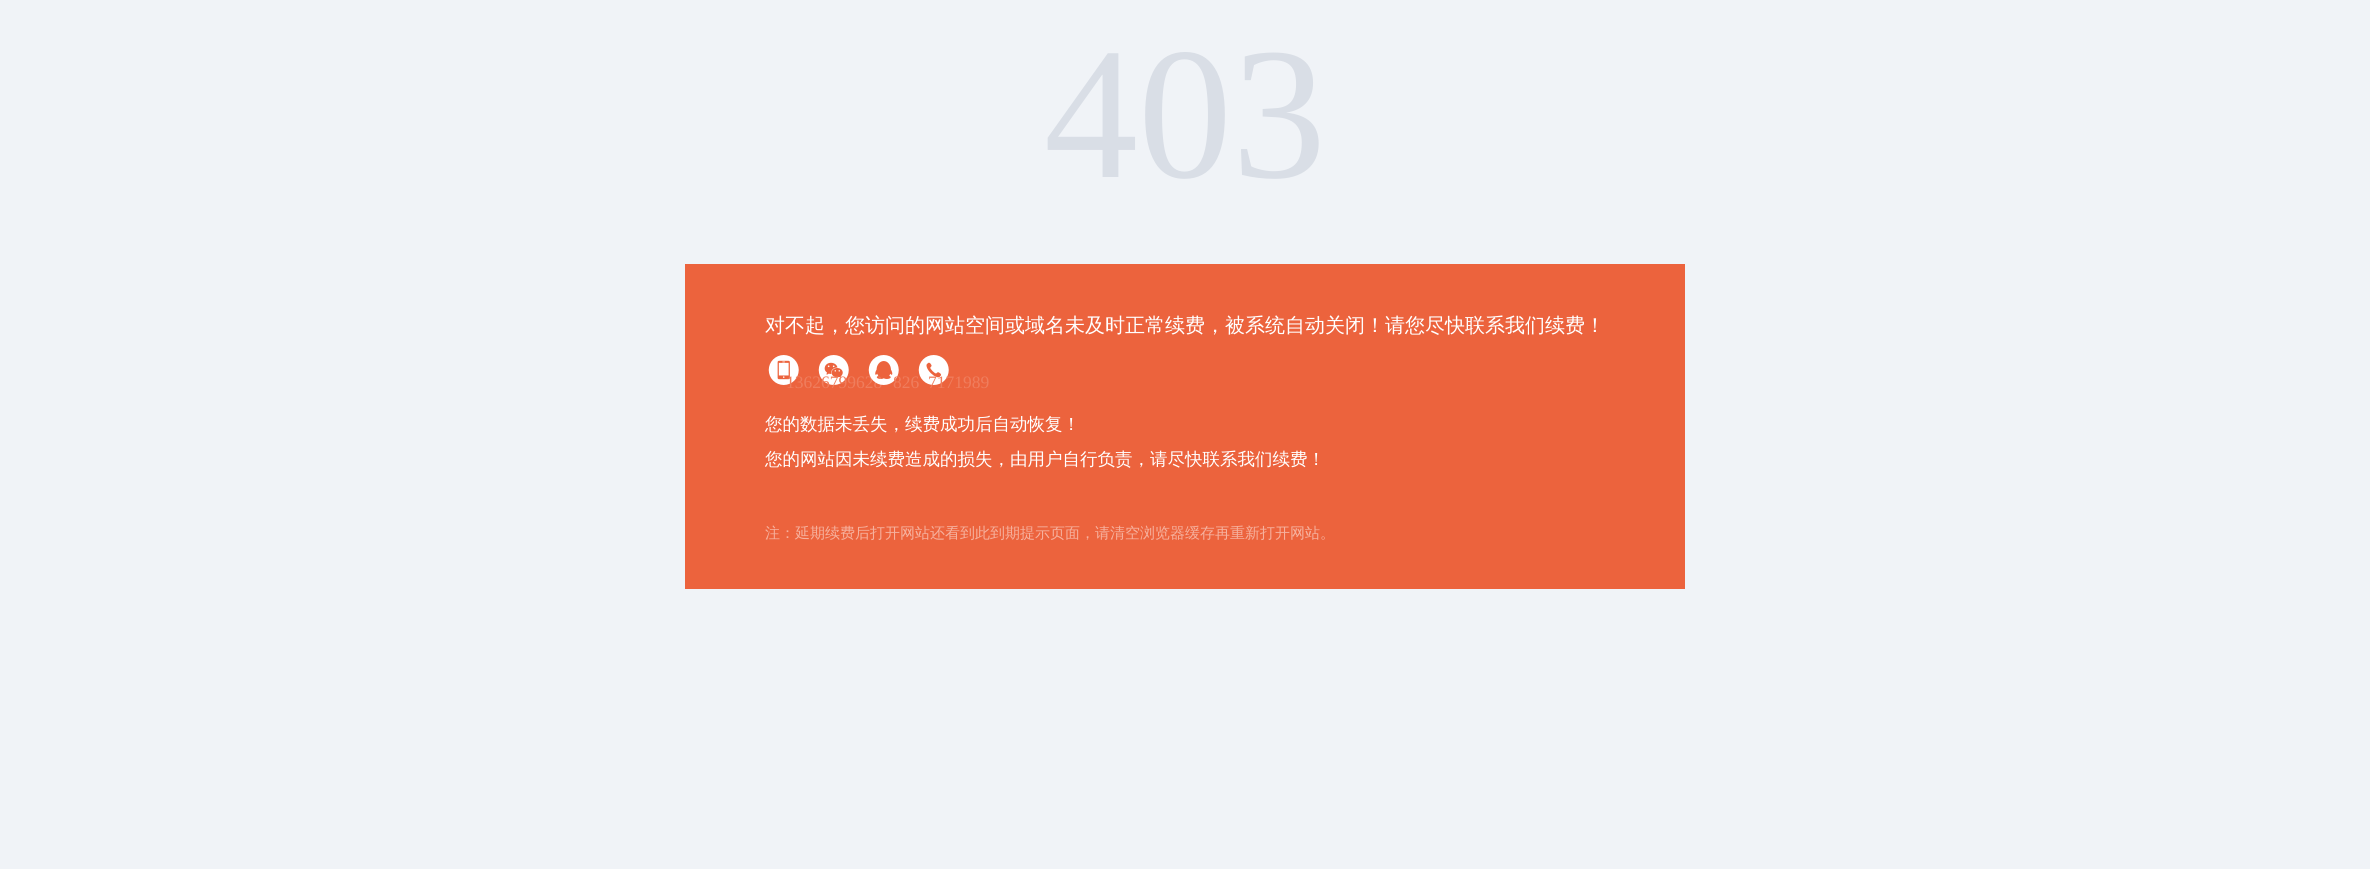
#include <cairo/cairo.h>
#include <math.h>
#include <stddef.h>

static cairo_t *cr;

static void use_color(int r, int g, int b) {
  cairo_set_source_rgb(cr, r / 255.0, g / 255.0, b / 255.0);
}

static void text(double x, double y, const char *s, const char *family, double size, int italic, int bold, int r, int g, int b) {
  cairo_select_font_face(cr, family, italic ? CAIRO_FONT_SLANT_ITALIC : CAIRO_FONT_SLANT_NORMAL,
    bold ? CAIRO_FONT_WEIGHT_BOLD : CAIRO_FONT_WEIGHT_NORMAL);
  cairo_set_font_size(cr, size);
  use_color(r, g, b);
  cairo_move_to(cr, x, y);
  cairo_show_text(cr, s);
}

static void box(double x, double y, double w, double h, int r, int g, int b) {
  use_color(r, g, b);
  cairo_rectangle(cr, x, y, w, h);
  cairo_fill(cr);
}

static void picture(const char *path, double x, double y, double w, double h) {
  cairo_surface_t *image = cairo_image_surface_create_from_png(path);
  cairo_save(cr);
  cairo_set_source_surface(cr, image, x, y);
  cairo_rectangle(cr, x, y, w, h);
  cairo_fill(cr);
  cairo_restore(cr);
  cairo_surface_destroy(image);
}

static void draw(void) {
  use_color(240, 243, 247);
  cairo_paint(cr);
  box(685, 264, 1000, 325, 236, 99, 61);
  picture("img_01.png", 768, 355, 31, 30);
  picture("img_02.png", 818, 355, 31, 30);
  text(1044, 177, "403", "Liberation Serif", 188, 0, 0, 217, 222, 230);
  text(765, 332, "对不起，您访问的网站空间或域名未及时正常续费，被系统自动关闭！请您尽快联系我们续费！", "WenQuanYi Zen Hei Medium", 20, 0, 0, 255, 255, 255);
  text(786, 388, "13626799628", "Liberation Serif", 17.5, 0, 0, 239, 125, 93);
  picture("img_03.png", 868, 355, 31, 30);
  text(893, 388, "826", "Liberation Serif", 17.5, 0, 0, 239, 125, 93);
  picture("img_04.png", 918, 355, 31, 30);
  text(928, 388, "7171989", "Liberation Serif", 17.5, 0, 0, 239, 125, 93);
  text(765, 430, "您的数据未丢失，续费成功后自动恢复！", "WenQuanYi Zen Hei Medium", 17.5, 0, 0, 255, 255, 255);
  use_color(236, 99, 61);
  cairo_new_path(cr);
  cairo_move_to(cr, 885, 405.5);
  cairo_line_to(cr, 892.5, 412.5);
  cairo_line_to(cr, 885, 419.5);
  cairo_line_to(cr, 878, 412.5);
  cairo_close_path(cr);
  cairo_fill(cr);
  text(765, 465, "您的网站因未续费造成的损失，由用户自行负责，请尽快联系我们续费！", "WenQuanYi Zen Hei Medium", 17.5, 0, 0, 255, 255, 255);
  text(765, 538, "注：延期续费后打开网站还看到此到期提示页面，请清空浏览器缓存再重新打开网站。", "WenQuanYi Zen Hei Medium", 15, 0, 0, 246, 177, 158);
}

int main(void) {
  cairo_surface_t *surface = cairo_image_surface_create(CAIRO_FORMAT_RGB24, 2370, 869);
  cr = cairo_create(surface);
  cairo_font_options_t *options = cairo_font_options_create();
  cairo_font_options_set_hint_metrics(options, CAIRO_HINT_METRICS_OFF);
  cairo_font_options_set_hint_style(options, CAIRO_HINT_STYLE_NONE);
  cairo_set_font_options(cr, options);
  cairo_set_miter_limit(cr, 4);
  draw();
  cairo_surface_write_to_png(surface, "out.png");
  cairo_font_options_destroy(options);
  cairo_destroy(cr);
  cairo_surface_destroy(surface);
  return 0;
}
